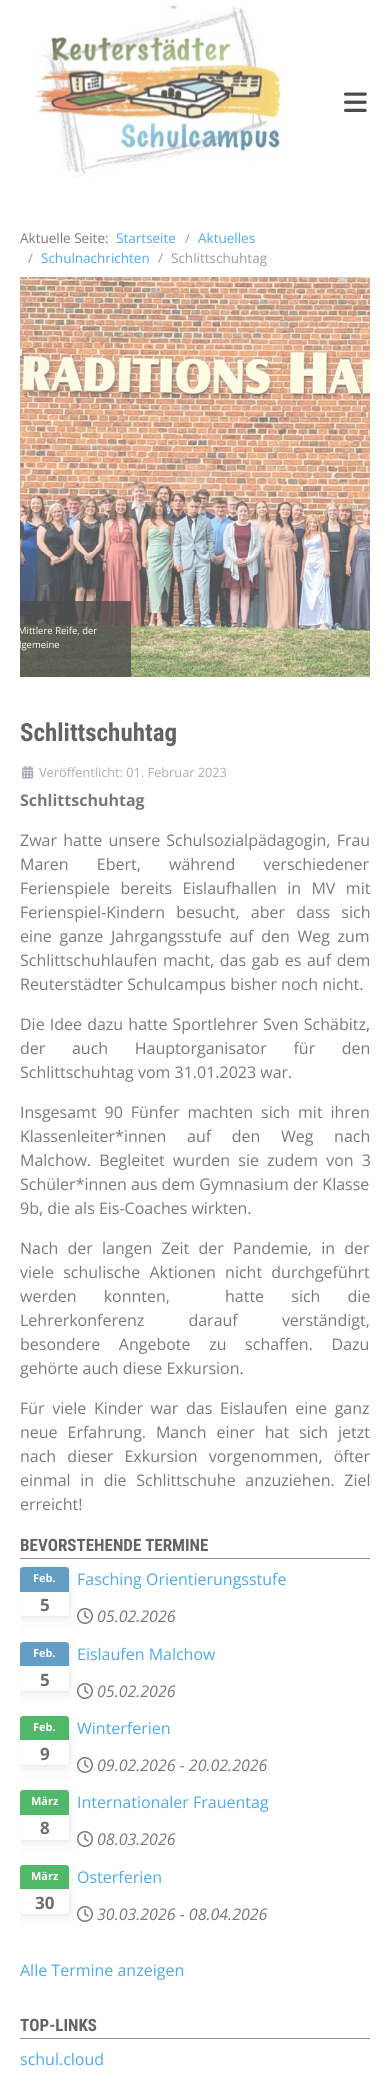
#include <cairo/cairo.h>
#include <math.h>
#include <stddef.h>

static cairo_t *cr;

static void use_color(int r, int g, int b) {
  cairo_set_source_rgb(cr, r / 255.0, g / 255.0, b / 255.0);
}

static void text(double x, double y, const char *s, const char *family, double size, int italic, int bold, int r, int g, int b) {
  cairo_select_font_face(cr, family, italic ? CAIRO_FONT_SLANT_ITALIC : CAIRO_FONT_SLANT_NORMAL,
    bold ? CAIRO_FONT_WEIGHT_BOLD : CAIRO_FONT_WEIGHT_NORMAL);
  cairo_set_font_size(cr, size);
  use_color(r, g, b);
  cairo_move_to(cr, x, y);
  cairo_show_text(cr, s);
}

static void spaced_text(double x, double y, const char *s, double letter, double word) {
  cairo_move_to(cr, x, y);
  while (*s) {
    char ch[5] = {0};
    int n = 0;
    do ch[n++] = *s++; while ((*s & 0xC0) == 0x80);
    cairo_show_text(cr, ch);
    cairo_rel_move_to(cr, letter + word * (*ch == ' '), 0);
  }
}

static void box(double x, double y, double w, double h, int r, int g, int b) {
  use_color(r, g, b);
  cairo_rectangle(cr, x, y, w, h);
  cairo_fill(cr);
}

static void round_rect(double x, double y, double w, double h, double r) {
  cairo_new_sub_path(cr);
  cairo_arc(cr, x + w - r, y + h - r, r, 0, M_PI / 2);
  cairo_arc(cr, x + r, y + h - r, r, M_PI / 2, M_PI);
  cairo_arc(cr, x + r, y + r, r, M_PI, 1.5 * M_PI);
  cairo_arc(cr, x + w - r, y + r, r, 1.5 * M_PI, 2 * M_PI);
  cairo_close_path(cr);
}

static void shadow(double x, double y, double w, double h, double r, double blur, double alpha) {
  cairo_push_group_with_content(cr, CAIRO_CONTENT_ALPHA);
  cairo_set_operator(cr, CAIRO_OPERATOR_SOURCE);
  for (int i = 15; i >= -15 && fmin(w, h) + blur * i / 3 > 0; i -= 2) {
    double e = blur * i / 6;
    cairo_set_source_rgba(cr, 0, 0, 0, alpha * erfc((i - 1) / 8.5) / 2);
    round_rect(x - e, y - e, w + 2 * e, h + 2 * e, fmax(0, fmin(r + e + blur * .6, fmin(w, h) / 2 + e)));
    cairo_fill(cr);
  }
  cairo_pattern_t *soft = cairo_pop_group(cr);
  cairo_mask(cr, soft);
  cairo_pattern_destroy(soft);
}

static void picture(const char *path, double x, double y, double w, double h) {
  cairo_surface_t *image = cairo_image_surface_create_from_png(path);
  cairo_save(cr);
  cairo_set_source_surface(cr, image, x, y);
  cairo_rectangle(cr, x, y, w, h);
  cairo_fill(cr);
  cairo_restore(cr);
  cairo_surface_destroy(image);
}

static void draw(void) {
  use_color(255, 255, 255);
  cairo_paint(cr);
  picture("img_01.png", 32, 3, 256, 175);
  picture("img_02.png", 344, 92, 23, 20);
  picture("img_04.png", 20, 277, 350, 400);
  cairo_set_source_rgba(cr, 1, 1, 1, 0.07);
  cairo_arc(cr, 195, 477, 18, 0, 2 * M_PI);
  cairo_fill(cr);
  picture("img_03.png", 180, 462, 30, 30);
  cairo_arc(cr, 195, 477, 17.5, 0, 2 * M_PI);
  cairo_set_source_rgba(cr, 1, 1, 1, 0.08);
  cairo_set_line_width(cr, 1);
  cairo_stroke(cr);
  cairo_set_source_rgba(cr, 0.302, 0.302, 0.302, 0.8);
  cairo_rectangle(cr, 20, 601, 111, 76);
  cairo_fill(cr);
  picture("img_05.png", 22, 765, 12, 14);
  box(20, 1558, 350, 1, 136, 136, 148);
  picture("img_06.png", 77, 1608, 16, 16);
  cairo_save(cr);
  cairo_rectangle(cr, 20, 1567, 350, 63);
  cairo_clip(cr);
  use_color(113, 117, 123);
  shadow(20, 1572, 49, 49, 3, 7.5, 0.08);
  shadow(20, 1569, 49, 49, 3, 2.5, 0.08);
  cairo_restore(cr);
  use_color(113, 117, 123);
  shadow(20, 1567, 49, 49, 3, 1, 0.1);
  use_color(255, 255, 255);
  round_rect(20, 1567, 49, 49, 3);
  cairo_fill(cr);
  box(20, 1590, 49, 2, 99, 158, 196);
  cairo_new_path(cr);
  cairo_move_to(cr, 23, 1567);
  cairo_line_to(cr, 66, 1567);
  cairo_curve_to(cr, 67.5, 1567, 69, 1568.5, 69, 1570);
  cairo_line_to(cr, 69, 1590);
  cairo_line_to(cr, 20, 1590);
  cairo_line_to(cr, 20, 1570);
  cairo_curve_to(cr, 20, 1568.5, 21.5, 1567, 23, 1567);
  cairo_close_path(cr);
  cairo_fill(cr);
  picture("img_06.png", 77, 1683, 16, 16);
  cairo_save(cr);
  cairo_rectangle(cr, 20, 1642, 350, 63);
  cairo_clip(cr);
  use_color(113, 117, 123);
  shadow(20, 1647, 49, 49, 3, 7.5, 0.08);
  shadow(20, 1644, 49, 49, 3, 2.5, 0.08);
  cairo_restore(cr);
  use_color(113, 117, 123);
  shadow(20, 1642, 49, 49, 3, 1, 0.1);
  use_color(255, 255, 255);
  round_rect(20, 1642, 49, 49, 3);
  cairo_fill(cr);
  box(20, 1664, 49, 2, 99, 158, 196);
  cairo_new_path(cr);
  cairo_move_to(cr, 23, 1642);
  cairo_line_to(cr, 66, 1642);
  cairo_curve_to(cr, 67.5, 1642, 69, 1643.5, 69, 1645);
  cairo_line_to(cr, 69, 1664);
  cairo_line_to(cr, 20, 1664);
  cairo_line_to(cr, 20, 1645);
  cairo_curve_to(cr, 20, 1643.5, 21.5, 1642, 23, 1642);
  cairo_close_path(cr);
  cairo_fill(cr);
  picture("img_06.png", 77, 1757, 16, 16);
  cairo_save(cr);
  cairo_rectangle(cr, 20, 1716, 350, 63);
  cairo_clip(cr);
  use_color(113, 117, 123);
  shadow(20, 1721, 49, 49, 3, 7.5, 0.08);
  shadow(20, 1718, 49, 49, 3, 2.5, 0.08);
  cairo_restore(cr);
  use_color(113, 117, 123);
  shadow(20, 1716, 49, 49, 3, 1, 0.1);
  use_color(255, 255, 255);
  round_rect(20, 1716, 49, 49, 3);
  cairo_fill(cr);
  box(20, 1738, 49, 2, 81, 184, 105);
  cairo_new_path(cr);
  cairo_move_to(cr, 23, 1716);
  cairo_line_to(cr, 66, 1716);
  cairo_curve_to(cr, 67.5, 1716, 69, 1717.5, 69, 1719);
  cairo_line_to(cr, 69, 1738);
  cairo_line_to(cr, 20, 1738);
  cairo_line_to(cr, 20, 1719);
  cairo_curve_to(cr, 20, 1717.5, 21.5, 1716, 23, 1716);
  cairo_close_path(cr);
  cairo_fill(cr);
  picture("img_06.png", 77, 1831, 16, 16);
  cairo_save(cr);
  cairo_rectangle(cr, 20, 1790, 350, 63);
  cairo_clip(cr);
  use_color(113, 117, 123);
  shadow(20, 1795, 49, 50, 3, 7.5, 0.08);
  shadow(20, 1792, 49, 50, 3, 2.5, 0.08);
  cairo_restore(cr);
  use_color(113, 117, 123);
  shadow(20, 1790, 49, 50, 3, 1, 0.1);
  use_color(255, 255, 255);
  round_rect(20, 1790, 49, 50, 3);
  cairo_fill(cr);
  box(20, 1813, 49, 2, 81, 184, 105);
  cairo_new_path(cr);
  cairo_move_to(cr, 23, 1790);
  cairo_line_to(cr, 66, 1790);
  cairo_curve_to(cr, 67.5, 1790, 69, 1791.5, 69, 1793);
  cairo_line_to(cr, 69, 1813);
  cairo_line_to(cr, 20, 1813);
  cairo_line_to(cr, 20, 1793);
  cairo_curve_to(cr, 20, 1791.5, 21.5, 1790, 23, 1790);
  cairo_close_path(cr);
  cairo_fill(cr);
  picture("img_06.png", 77, 1906, 16, 16);
  cairo_save(cr);
  cairo_rectangle(cr, 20, 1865, 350, 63);
  cairo_clip(cr);
  use_color(113, 117, 123);
  shadow(20, 1870, 49, 49, 3, 7.5, 0.08);
  shadow(20, 1867, 49, 49, 3, 2.5, 0.08);
  cairo_restore(cr);
  use_color(113, 117, 123);
  shadow(20, 1865, 49, 49, 3, 1, 0.1);
  use_color(255, 255, 255);
  round_rect(20, 1865, 49, 49, 3);
  cairo_fill(cr);
  box(20, 1887, 49, 2, 81, 184, 105);
  cairo_new_path(cr);
  cairo_move_to(cr, 23, 1865);
  cairo_line_to(cr, 66, 1865);
  cairo_curve_to(cr, 67.5, 1865, 69, 1866.5, 69, 1868);
  cairo_line_to(cr, 69, 1887);
  cairo_line_to(cr, 20, 1887);
  cairo_line_to(cr, 20, 1868);
  cairo_curve_to(cr, 20, 1866.5, 21.5, 1865, 23, 1865);
  cairo_close_path(cr);
  cairo_fill(cr);
  box(20, 2038, 350, 1, 136, 136, 148);
  text(20, 243, "Aktuelle Seite:", "Open Sans", 13.5, 0, 0, 121, 121, 121);
  text(116, 243, "Startseite", "Open Sans", 13.5, 0, 0, 77, 169, 240);
  text(185, 243, "/", "Open Sans", 13.5, 0, 0, 152, 158, 164);
  text(198, 243, "Aktuelles", "Open Sans", 13.5, 0, 0, 77, 169, 240);
  text(28, 263, "/", "Open Sans", 13.5, 0, 0, 152, 158, 164);
  text(41, 263, "Schulnachrichten", "Open Sans", 13.5, 0, 0, 77, 169, 240);
  text(158, 263, "/", "Open Sans", 13.5, 0, 0, 152, 158, 164);
  text(171, 263, "Schlittschuhtag", "Open Sans", 13.5, 0, 0, 152, 158, 164);
  cairo_save(cr);
  cairo_rectangle(cr, 20, 277, 350, 400);
  cairo_clip(cr);
  text(18, 634, "Mittlere Reife, der", "Open Sans", 9.5, 0, 0, 255, 255, 255);
  cairo_restore(cr);
  text(19, 648, "lgemeine", "Open Sans", 9.5, 0, 0, 255, 255, 255);
  text(20, 741, "Schlittschuhtag", "Roboto Condensed", 25, 0, 1, 100, 100, 100);
  text(39, 777, "Veröffentlicht: 01. Februar 2023", "Open Sans", 12.75, 0, 0, 172, 172, 184);
  text(20, 806, "Schlittschuhtag", "Open Sans", 16, 0, 1, 121, 121, 121);
  cairo_select_font_face(cr, "Open Sans", CAIRO_FONT_SLANT_NORMAL, CAIRO_FONT_WEIGHT_NORMAL);
  spaced_text(20, 846, "Zwar hatte unsere Schulsozialpädagogin, Frau", 0, 2);
  spaced_text(20, 870, "Maren Ebert, während verschiedener", 0, 24);
  spaced_text(20, 894, "Ferienspiele bereits Eislaufhallen in MV mit", 0, 6.25);
  spaced_text(20, 918, "Ferienspiel-Kindern besucht, aber dass sich", 0, 7);
  spaced_text(20, 942, "eine ganze Jahrgangsstufe auf den Weg zum", 0, 3.5);
  spaced_text(20, 966, "Schlittschuhlaufen macht, das gab es auf dem", 0, 1.5);
  text(20, 990, "Reuterstädter Schulcampus bisher noch nicht.", "Open Sans", 16, 0, 0, 121, 121, 121);
  spaced_text(20, 1030, "Die Idee dazu hatte Sportlehrer Sven Schäbitz,", 0, 1);
  spaced_text(20, 1054, "der auch Hauptorganisator für den", 0, 22.5);
  text(20, 1078, "Schlittschuhtag vom 31.01.2023 war.", "Open Sans", 16, 0, 0, 121, 121, 121);
  spaced_text(20, 1118, "Insgesamt 90 Fünfer machten sich mit ihren", 0, 3.75);
  spaced_text(20, 1142, "Klassenleiter*innen auf den Weg nach", 0, 16.5);
  spaced_text(20, 1166, "Malchow. Begleitet wurden sie zudem von 3", 0, 4);
  text(20, 1190, "Schüler*innen aus dem Gymnasium der Klasse", "Open Sans", 16, 0, 0, 121, 121, 121);
  text(20, 1214, "9b, die als Eis-Coaches wirkten.", "Open Sans", 16, 0, 0, 121, 121, 121);
  spaced_text(20, 1254, "Nach der langen Zeit der Pandemie, in der", 0, 5);
  spaced_text(20, 1278, "viele schulische Aktionen nicht durchgeführt", 0, 5);
  spaced_text(20, 1302, "werden konnten,", 0, 23);
  spaced_text(225, 1302, "hatte sich die", 0, 23);
  spaced_text(20, 1326, "Lehrerkonferenz darauf verständigt,", 0, 40);
  spaced_text(20, 1350, "besondere Angebote zu schaffen. Dazu", 0, 14.5);
  text(20, 1374, "gehörte auch diese Exkursion.", "Open Sans", 16, 0, 0, 121, 121, 121);
  spaced_text(20, 1414, "Für viele Kinder war das Eislaufen eine ganz", 0, 3.5);
  spaced_text(20, 1438, "neue Erfahrung. Manch einer hat sich jetzt", 0, 5.75);
  spaced_text(20, 1462, "nach dieser Exkursion vorgenommen, öfter", 0, 7);
  spaced_text(20, 1486, "einmal in die Schlittschuhe anzuziehen. Ziel", 0, 5.5);
  text(20, 1510, "erreicht!", "Open Sans", 16, 0, 0, 121, 121, 121);
  text(20, 1551, "BEVORSTEHENDE TERMINE", "Roboto Condensed", 17, 0, 1, 100, 100, 100);
  text(33, 1582, "Feb.", "Open Sans", 11, 0, 1, 255, 255, 255);
  text(40, 1611, "5", "Open Sans", 17, 0, 1, 109, 109, 109);
  text(77, 1585, "Fasching Orientierungsstufe", "Open Sans", 16, 0, 0, 77, 169, 240);
  text(97, 1622, "05.02.2026", "Open Sans", 16, 1, 0, 121, 121, 121);
  text(33, 1657, "Feb.", "Open Sans", 11, 0, 1, 255, 255, 255);
  text(40, 1686, "5", "Open Sans", 17, 0, 1, 109, 109, 109);
  text(77, 1660, "Eislaufen Malchow", "Open Sans", 16, 0, 0, 77, 169, 240);
  text(97, 1697, "05.02.2026", "Open Sans", 16, 1, 0, 121, 121, 121);
  text(33, 1731, "Feb.", "Open Sans", 11, 0, 1, 255, 255, 255);
  text(40, 1760, "9", "Open Sans", 17, 0, 1, 109, 109, 109);
  text(77, 1734, "Winterferien", "Open Sans", 16, 0, 0, 77, 169, 240);
  text(97, 1771, "09.02.2026 - 20.02.2026", "Open Sans", 16, 1, 0, 121, 121, 121);
  text(31, 1805, "März", "Open Sans", 11, 0, 1, 255, 255, 255);
  text(40, 1834, "8", "Open Sans", 17, 0, 1, 109, 109, 109);
  text(77, 1808, "Internationaler Frauentag", "Open Sans", 16, 0, 0, 77, 169, 240);
  text(97, 1845, "08.03.2026", "Open Sans", 16, 1, 0, 121, 121, 121);
  text(31, 1880, "März", "Open Sans", 11, 0, 1, 255, 255, 255);
  text(35, 1909, "30", "Open Sans", 17, 0, 1, 109, 109, 109);
  text(77, 1883, "Osterferien", "Open Sans", 16, 0, 0, 77, 169, 240);
  text(97, 1920, "30.03.2026 - 08.04.2026", "Open Sans", 16, 1, 0, 121, 121, 121);
  text(20, 1976, "Alle Termine anzeigen", "Open Sans", 16, 0, 0, 77, 169, 240);
  text(20, 2031, "TOP-LINKS", "Roboto Condensed", 17, 0, 1, 100, 100, 100);
  text(20, 2065, "schul.cloud", "Open Sans", 16, 0, 0, 77, 169, 240);
}

int main(void) {
  cairo_surface_t *surface = cairo_image_surface_create(CAIRO_FORMAT_RGB24, 390, 2099);
  cr = cairo_create(surface);
  cairo_font_options_t *options = cairo_font_options_create();
  cairo_font_options_set_hint_metrics(options, CAIRO_HINT_METRICS_OFF);
  cairo_font_options_set_hint_style(options, CAIRO_HINT_STYLE_NONE);
  cairo_set_font_options(cr, options);
  cairo_set_miter_limit(cr, 4);
  draw();
  cairo_surface_write_to_png(surface, "out.png");
  cairo_font_options_destroy(options);
  cairo_destroy(cr);
  cairo_surface_destroy(surface);
  return 0;
}
